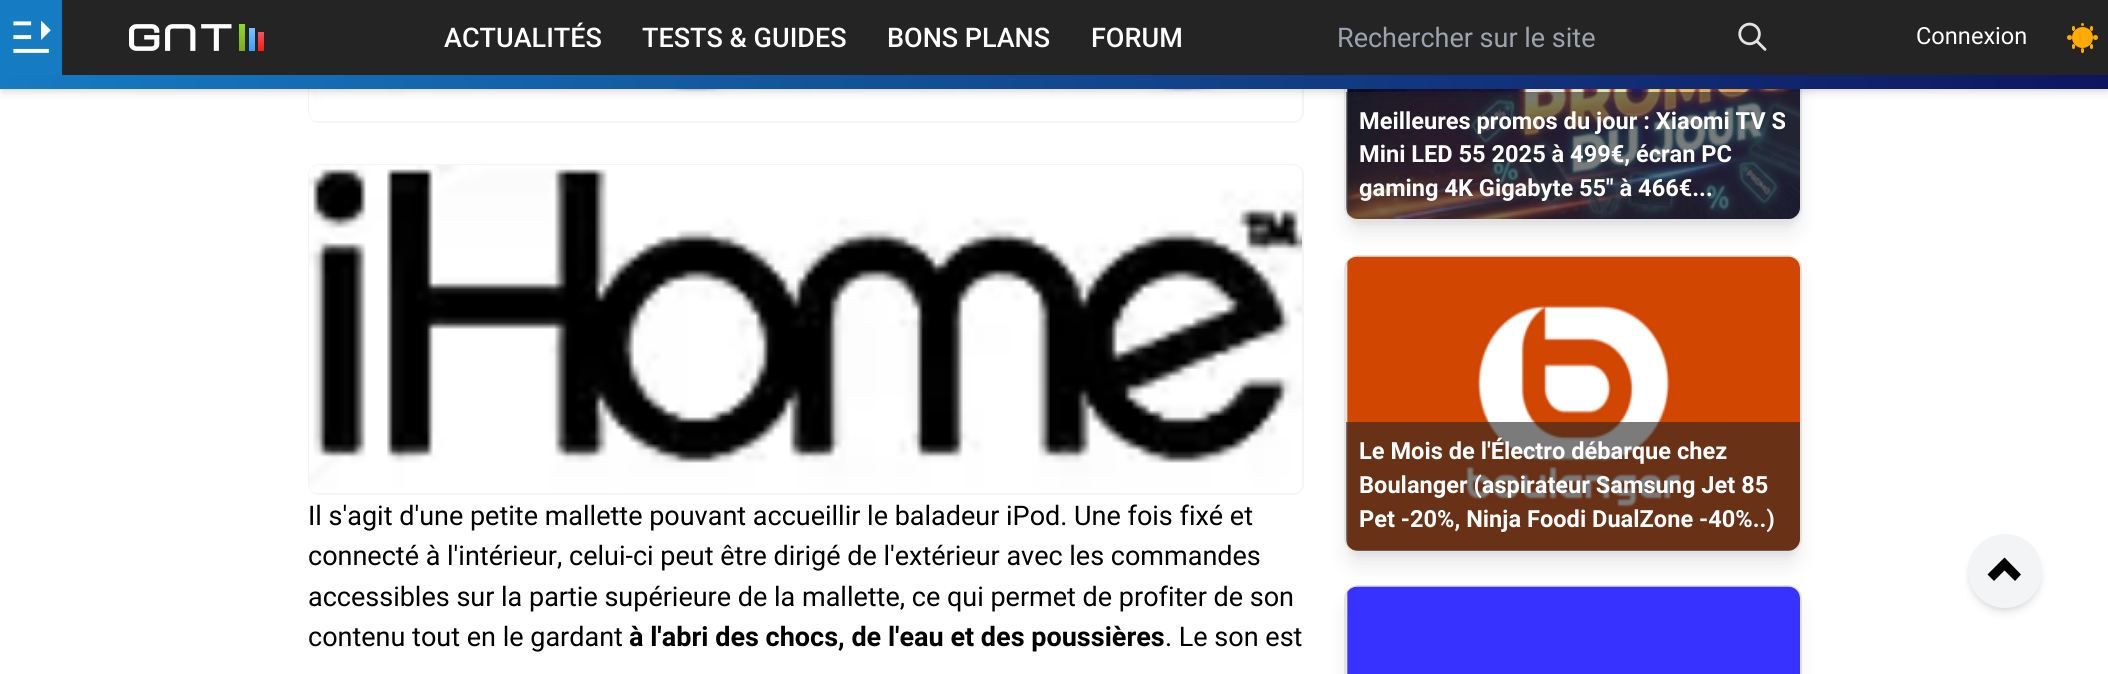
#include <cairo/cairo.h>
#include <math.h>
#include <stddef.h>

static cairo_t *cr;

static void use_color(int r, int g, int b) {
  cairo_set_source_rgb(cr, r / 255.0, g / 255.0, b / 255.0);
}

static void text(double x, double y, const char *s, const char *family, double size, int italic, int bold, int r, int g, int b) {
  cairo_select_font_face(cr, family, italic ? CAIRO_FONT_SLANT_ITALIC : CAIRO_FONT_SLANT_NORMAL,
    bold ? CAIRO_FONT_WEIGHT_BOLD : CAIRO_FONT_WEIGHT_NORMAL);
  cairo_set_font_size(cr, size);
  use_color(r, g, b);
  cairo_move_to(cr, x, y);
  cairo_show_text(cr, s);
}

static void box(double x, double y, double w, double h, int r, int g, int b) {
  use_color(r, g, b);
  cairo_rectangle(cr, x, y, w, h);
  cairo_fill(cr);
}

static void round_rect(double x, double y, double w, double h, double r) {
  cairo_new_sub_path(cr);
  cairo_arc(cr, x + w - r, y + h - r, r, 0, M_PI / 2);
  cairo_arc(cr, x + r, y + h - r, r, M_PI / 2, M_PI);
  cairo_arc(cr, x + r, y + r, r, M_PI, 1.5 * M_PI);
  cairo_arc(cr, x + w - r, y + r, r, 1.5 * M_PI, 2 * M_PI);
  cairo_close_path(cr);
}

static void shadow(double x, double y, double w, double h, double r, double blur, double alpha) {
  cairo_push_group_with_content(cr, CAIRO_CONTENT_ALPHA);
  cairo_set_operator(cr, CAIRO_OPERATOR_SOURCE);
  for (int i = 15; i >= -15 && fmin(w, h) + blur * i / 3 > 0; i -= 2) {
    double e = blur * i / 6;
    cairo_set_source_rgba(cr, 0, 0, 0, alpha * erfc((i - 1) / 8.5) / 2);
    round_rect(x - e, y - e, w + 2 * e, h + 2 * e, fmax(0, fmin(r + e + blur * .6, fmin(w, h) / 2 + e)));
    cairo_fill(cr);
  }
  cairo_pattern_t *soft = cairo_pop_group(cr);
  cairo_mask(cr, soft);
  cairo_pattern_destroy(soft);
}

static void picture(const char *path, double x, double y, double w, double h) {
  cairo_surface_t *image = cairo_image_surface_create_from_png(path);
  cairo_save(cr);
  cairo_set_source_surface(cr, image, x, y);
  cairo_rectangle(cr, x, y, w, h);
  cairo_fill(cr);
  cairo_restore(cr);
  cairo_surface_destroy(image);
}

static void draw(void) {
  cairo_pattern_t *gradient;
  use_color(255, 255, 255);
  cairo_paint(cr);
  use_color(0, 0, 0);
  shadow(1350, -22, 446, 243, 8, 4.5, 0.1);
  shadow(1349, -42, 448, 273, 9, 11, 0.1);
  round_rect(1345, -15, 456, 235, 13);
  use_color(227, 227, 227);
  cairo_stroke(cr);
  picture("img_04.png", 1345, 89, 455, 130);
  cairo_set_source_rgba(cr, 0.141, 0.141, 0.141, 0.6);
  cairo_new_path(cr);
  cairo_move_to(cr, 1346, 92);
  cairo_line_to(cr, 1800, 92);
  cairo_line_to(cr, 1800, 207);
  cairo_curve_to(cr, 1800, 213.5, 1794.5, 219, 1788, 219);
  cairo_line_to(cr, 1358, 219);
  cairo_curve_to(cr, 1351.5, 219, 1346, 213.5, 1346, 207);
  cairo_close_path(cr);
  cairo_fill(cr);
  round_rect(309, -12, 994, 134, 10);
  use_color(243, 244, 246);
  cairo_stroke(cr);
  picture("img_07.png", 309, 89, 993, 32);
  use_color(0, 0, 0);
  shadow(3, 6, 2103, 83, 0, 3, 0.1);
  shadow(2, 8, 2106, 85, 0, 4.5, 0.1);
  box(62, 0, 2046, 75, 36, 36, 36);
  box(0, 0, 62, 75, 21, 123, 194);
  picture("img_01.png", 13, 20, 38, 33);
  picture("img_02.png", 129, 24, 135, 27);
  picture("img_03.png", 1738, 22, 29, 29);
  use_color(255, 170, 0);
  round_rect(2090, 26, 3, 5, 1.5);
  cairo_fill(cr);
  round_rect(2072, 44, 3, 5, 1.5);
  cairo_fill(cr);
  round_rect(2090, 44, 3, 5, 1.5);
  cairo_fill(cr);
  round_rect(2072, 26, 3, 5, 1.5);
  cairo_fill(cr);
  round_rect(2081, 48, 3, 5, 1.5);
  cairo_fill(cr);
  cairo_arc(cr, 2082.5, 24.5, 1.5, 0, 2 * M_PI);
  cairo_fill(cr);
  cairo_arc(cr, 2095.5, 37.5, 2.5, 0, 2 * M_PI);
  cairo_fill(cr);
  cairo_arc(cr, 2069.5, 37.5, 2.5, 0, 2 * M_PI);
  cairo_fill(cr);
  cairo_arc(cr, 2082.5, 37.5, 10.5, 0, 2 * M_PI);
  cairo_fill(cr);
  gradient = cairo_pattern_create_linear(0, 82, 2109, 82);
  cairo_pattern_add_color_stop_rgba(gradient, 0, 0.082, 0.482, 0.761, 1);
  cairo_pattern_add_color_stop_rgba(gradient, 1, 0.055, 0.086, 0.373, 1);
  cairo_set_source(cr, gradient);
  cairo_pattern_destroy(gradient);
  cairo_rectangle(cr, 0, 75, 2108, 14);
  cairo_fill(cr);
  use_color(0, 0, 0);
  shadow(1350, 267, 446, 285, 8, 4.5, 0.1);
  shadow(1349, 275, 448, 288, 9, 11, 0.1);
  round_rect(1345, 256, 456, 295, 13);
  use_color(227, 227, 227);
  cairo_stroke(cr);
  picture("img_05.png", 1346, 256, 454, 295);
  cairo_set_source_rgba(cr, 0.141, 0.141, 0.141, 0.6);
  cairo_new_path(cr);
  cairo_move_to(cr, 1346, 422);
  cairo_line_to(cr, 1800, 422);
  cairo_line_to(cr, 1800, 539);
  cairo_curve_to(cr, 1800, 545.5, 1794.5, 551, 1788, 551);
  cairo_line_to(cr, 1358, 551);
  cairo_curve_to(cr, 1351.5, 551, 1346, 545.5, 1346, 539);
  cairo_close_path(cr);
  cairo_fill(cr);
  use_color(0, 0, 0);
  shadow(1349, 605, 448, 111, 9, 11, 0.1);
  round_rect(1345, 586, 456, 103, 13);
  use_color(227, 227, 227);
  cairo_stroke(cr);
  picture("img_06.png", 1346, 586, 454, 88);
  round_rect(309, 165, 994, 329, 10);
  use_color(243, 244, 246);
  cairo_stroke(cr);
  picture("img_08.png", 309, 165, 993, 328);
  use_color(0, 0, 0);
  shadow(1971, 540, 68, 68, 34, 3, 0.1);
  shadow(1970, 542, 70, 70, 35, 4.5, 0.1);
  use_color(243, 244, 246);
  cairo_arc(cr, 2005, 571, 37, 0, 2 * M_PI);
  cairo_fill(cr);
  use_color(0, 0, 0);
  cairo_new_path(cr);
  cairo_move_to(cr, 2004.5, 557.5);
  cairo_line_to(cr, 1987.5, 574.5);
  cairo_line_to(cr, 1994, 581);
  cairo_line_to(cr, 2004.5, 570.5);
  cairo_line_to(cr, 2015, 581);
  cairo_line_to(cr, 2021, 574.5);
  cairo_close_path(cr);
  cairo_fill(cr);
  text(444, 47, "ACTUALITÉS", "Roboto Medium", 27, 0, 0, 255, 255, 255);
  text(642, 47, "TESTS & GUIDES", "Roboto Medium", 27, 0, 0, 255, 255, 255);
  text(887, 47, "BONS PLANS", "Roboto Medium", 27, 0, 0, 255, 255, 255);
  text(1091, 47, "FORUM", "Roboto Medium", 27, 0, 0, 255, 255, 255);
  text(1337, 47, "Rechercher sur le site", "Roboto", 27, 0, 0, 156, 163, 175);
  text(1916, 44, "Connexion", "Roboto", 23.6, 0, 0, 255, 255, 255);
  text(1359, 129, "Meilleures promos du jour : Xiaomi TV S", "Roboto", 23.6, 0, 1, 255, 255, 255);
  text(1359, 162, "Mini LED 55 2025 à 499€, écran PC", "Roboto", 23.6, 0, 1, 255, 255, 255);
  text(1359, 196, "gaming 4K Gigabyte 55\" à 466€...", "Roboto", 23.6, 0, 1, 255, 255, 255);
  text(1359, 459, "Le Mois de l'Électro débarque chez", "Roboto", 23.6, 0, 1, 255, 255, 255);
  text(1359, 493, "Boulanger (aspirateur Samsung Jet 85", "Roboto", 23.6, 0, 1, 255, 255, 255);
  text(1359, 527, "Pet -20%, Ninja Foodi DualZone -40%..)", "Roboto", 23.6, 0, 1, 255, 255, 255);
  text(308, 525, "Il s'agit d'une petite mallette pouvant accueillir le baladeur iPod. Une fois fixé et", "Roboto", 27, 0, 0, 0, 0, 0);
  text(308, 565, "connecté à l'intérieur, celui-ci peut être dirigé de l'extérieur avec les commandes", "Roboto", 27, 0, 0, 0, 0, 0);
  text(308, 606, "accessibles sur la partie supérieure de la mallette, ce qui permet de profiter de son", "Roboto", 27, 0, 0, 0, 0, 0);
  text(308, 646, "contenu tout en le gardant", "Roboto", 27, 0, 0, 0, 0, 0);
  text(629, 646, "à l'abri des chocs, de l'eau et des poussières", "Roboto", 27, 0, 1, 0, 0, 0);
  text(1165, 646, ". Le son est", "Roboto", 27, 0, 0, 0, 0, 0);
}

int main(void) {
  cairo_surface_t *surface = cairo_image_surface_create(CAIRO_FORMAT_RGB24, 2108, 674);
  cr = cairo_create(surface);
  cairo_font_options_t *options = cairo_font_options_create();
  cairo_font_options_set_hint_metrics(options, CAIRO_HINT_METRICS_OFF);
  cairo_font_options_set_hint_style(options, CAIRO_HINT_STYLE_NONE);
  cairo_set_font_options(cr, options);
  cairo_set_miter_limit(cr, 4);
  draw();
  cairo_surface_write_to_png(surface, "out.png");
  cairo_font_options_destroy(options);
  cairo_destroy(cr);
  cairo_surface_destroy(surface);
  return 0;
}
